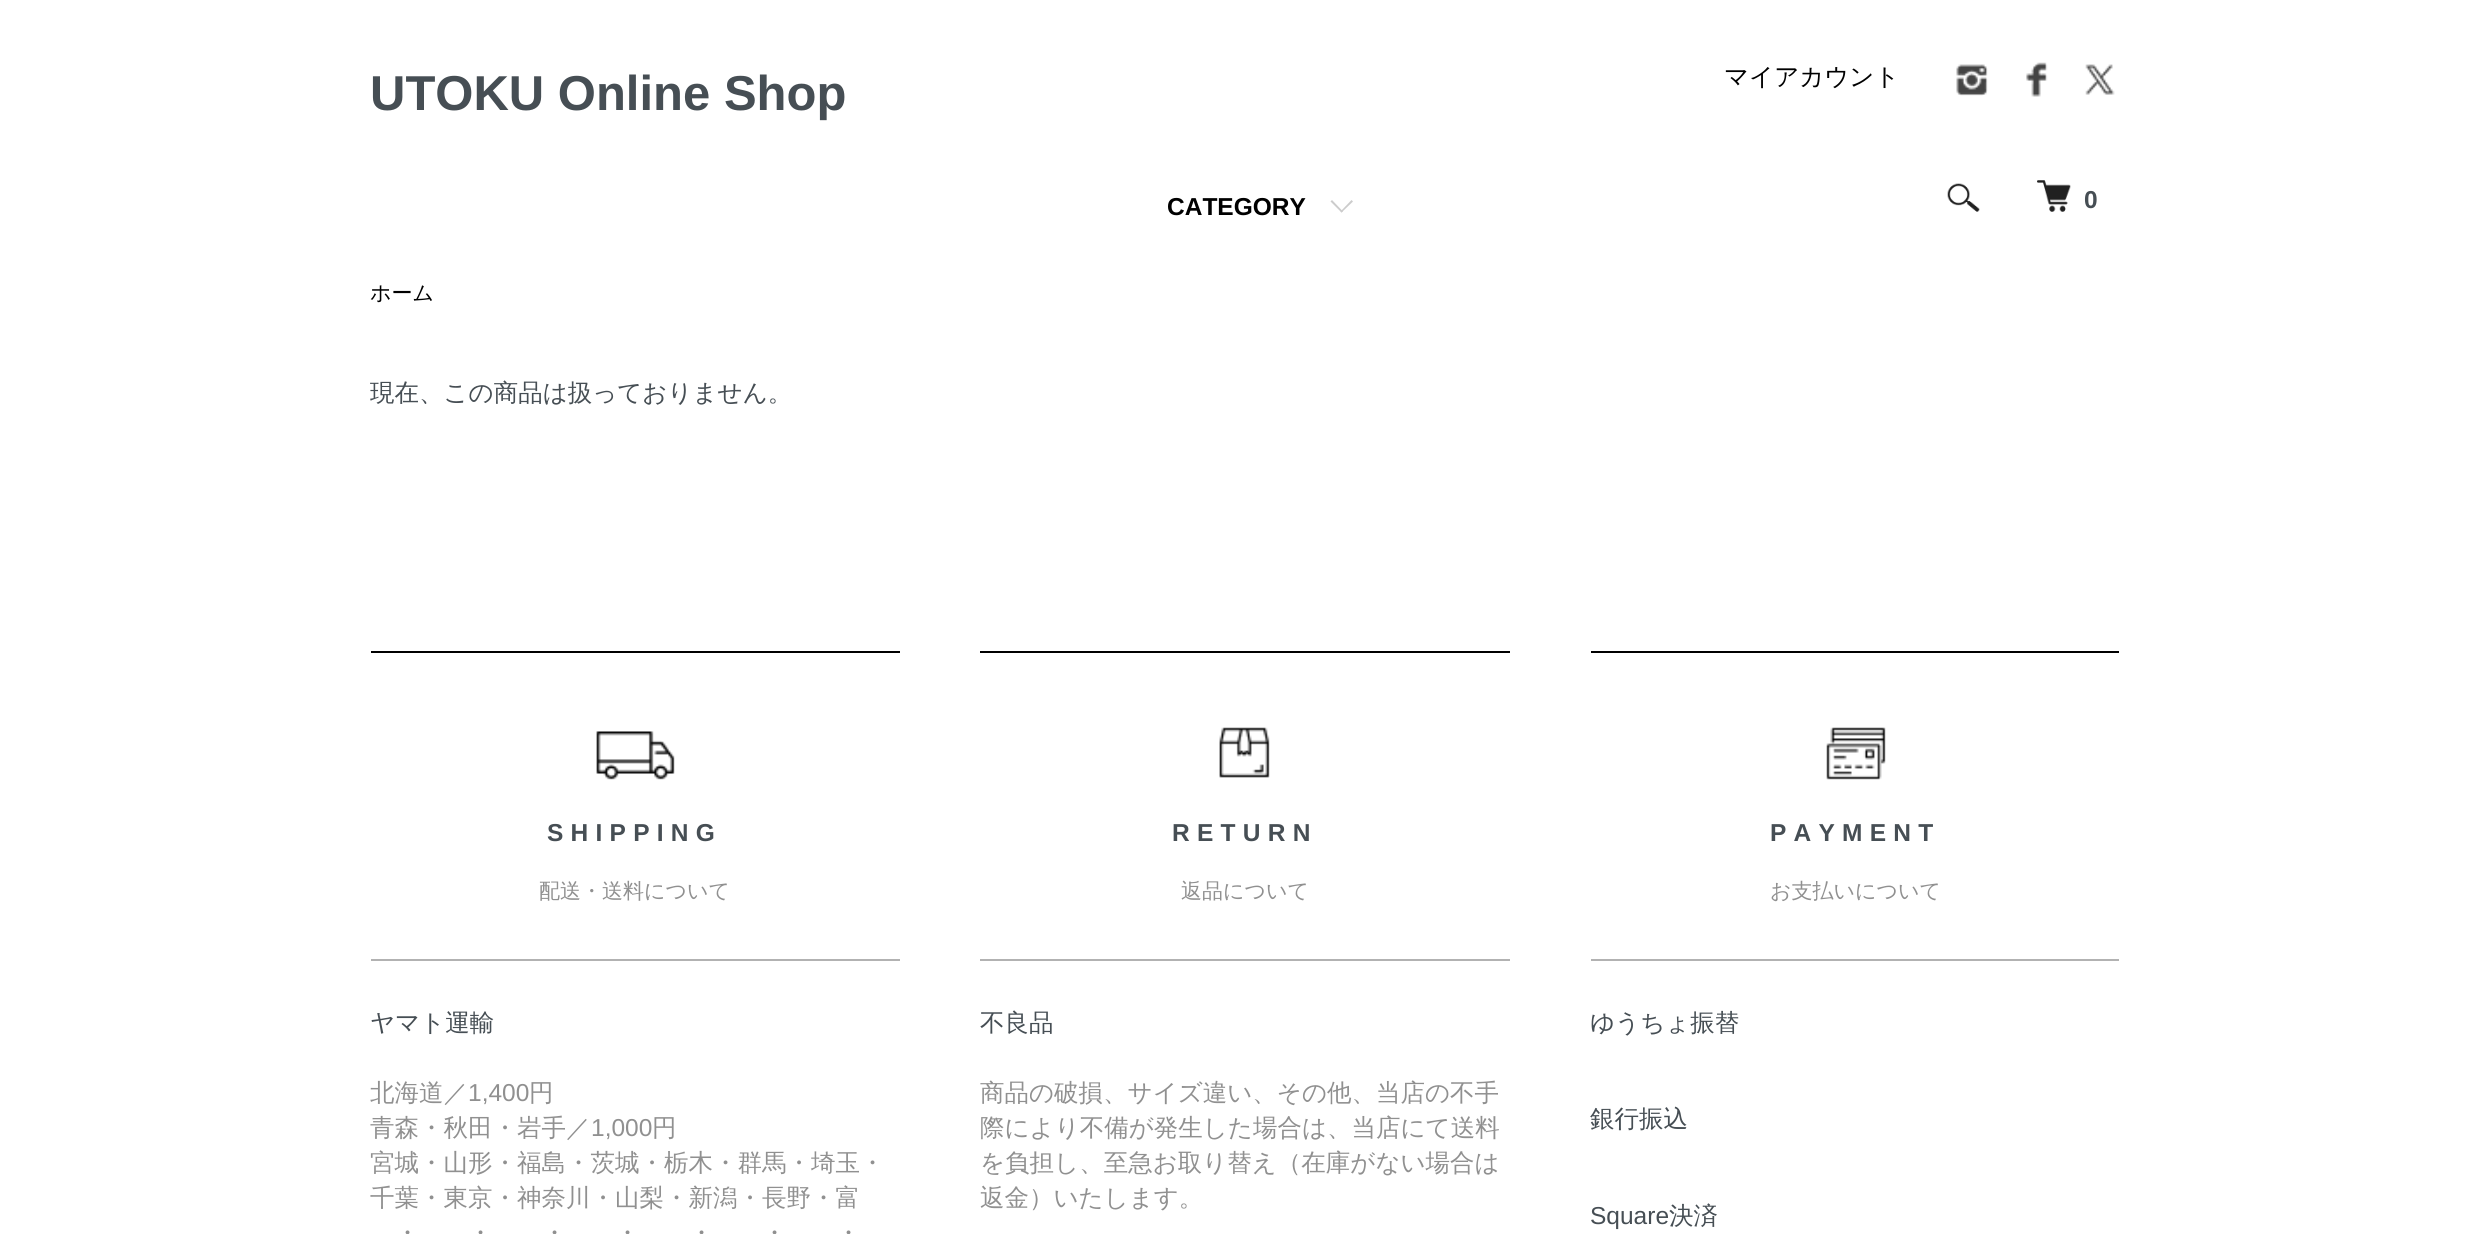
#include <cairo/cairo.h>
#include <math.h>
#include <stddef.h>

static cairo_t *cr;

static void use_color(int r, int g, int b) {
  cairo_set_source_rgb(cr, r / 255.0, g / 255.0, b / 255.0);
}

static void text(double x, double y, const char *s, const char *family, double size, int italic, int bold, int r, int g, int b) {
  cairo_select_font_face(cr, family, italic ? CAIRO_FONT_SLANT_ITALIC : CAIRO_FONT_SLANT_NORMAL,
    bold ? CAIRO_FONT_WEIGHT_BOLD : CAIRO_FONT_WEIGHT_NORMAL);
  cairo_set_font_size(cr, size);
  use_color(r, g, b);
  cairo_move_to(cr, x, y);
  cairo_show_text(cr, s);
}

static void spaced_text(double x, double y, const char *s, double letter, double word) {
  cairo_move_to(cr, x, y);
  while (*s) {
    char ch[5] = {0};
    int n = 0;
    do ch[n++] = *s++; while ((*s & 0xC0) == 0x80);
    cairo_show_text(cr, ch);
    cairo_rel_move_to(cr, letter + word * (*ch == ' '), 0);
  }
}

static void box(double x, double y, double w, double h, int r, int g, int b) {
  use_color(r, g, b);
  cairo_rectangle(cr, x, y, w, h);
  cairo_fill(cr);
}

static void picture(const char *path, double x, double y, double w, double h) {
  cairo_surface_t *image = cairo_image_surface_create_from_png(path);
  cairo_save(cr);
  cairo_set_source_surface(cr, image, x, y);
  cairo_rectangle(cr, x, y, w, h);
  cairo_fill(cr);
  cairo_restore(cr);
  cairo_surface_destroy(image);
}

static void draw(void) {
  use_color(255, 255, 255);
  cairo_paint(cr);
  picture("img_01.png", 1956, 64, 32, 32);
  picture("img_02.png", 2026, 62, 22, 35);
  picture("img_03.png", 2085, 64, 30, 31);
  use_color(204, 204, 204);
  cairo_new_path(cr);
  cairo_move_to(cr, 1351.5, 200);
  cairo_line_to(cr, 1353, 201.5);
  cairo_line_to(cr, 1341.5, 212.5);
  cairo_line_to(cr, 1340.5, 211.5);
  cairo_close_path(cr);
  cairo_fill(cr);
  cairo_new_path(cr);
  cairo_move_to(cr, 1332, 200);
  cairo_line_to(cr, 1343, 211.5);
  cairo_line_to(cr, 1341.5, 212.5);
  cairo_line_to(cr, 1330.5, 201.5);
  cairo_close_path(cr);
  cairo_fill(cr);
  picture("img_04.png", 1947, 183, 33, 29);
  picture("img_05.png", 2037, 180, 34, 32);
  box(371, 651, 529, 2, 0, 0, 0);
  box(371, 959, 529, 2, 178, 178, 178);
  picture("img_06.png", 596, 731, 79, 49);
  box(980, 651, 530, 2, 0, 0, 0);
  box(980, 959, 530, 2, 178, 178, 178);
  picture("img_07.png", 1219, 727, 51, 51);
  box(1591, 651, 528, 2, 0, 0, 0);
  box(1591, 959, 528, 2, 178, 178, 178);
  picture("img_08.png", 1826, 727, 60, 53);
  text(1724, 85, "マイアカウント", "WenQuanYi Zen Hei Medium", 24.5, 0, 0, 0, 0, 0);
  text(1167, 215, "CATEGORY", "Liberation Sans", 24.5, 0, 1, 0, 0, 0);
  text(370, 110, "UTOKU Online Shop", "Liberation Sans", 49, 0, 1, 70, 78, 84);
  text(2084, 208, "0", "Liberation Sans", 24.5, 0, 1, 70, 78, 84);
  text(370, 300, "ホーム", "WenQuanYi Zen Hei Medium", 21, 0, 0, 0, 0, 0);
  text(370, 401, "現在、この商品は扱っておりません。", "WenQuanYi Zen Hei Medium", 24.5, 0, 0, 70, 78, 84);
  cairo_select_font_face(cr, "Liberation Sans", CAIRO_FONT_SLANT_NORMAL, CAIRO_FONT_WEIGHT_BOLD);
  spaced_text(547, 841, "SHIPPING", 7.25, 0);
  text(539, 898, "配送・送料について", "WenQuanYi Zen Hei Medium", 21, 0, 0, 144, 144, 144);
  text(370, 1031, "ヤマト運輸", "WenQuanYi Zen Hei Medium", 24.5, 0, 0, 70, 78, 84);
  text(370, 1101, "北海道／", "WenQuanYi Zen Hei Medium", 24.5, 0, 0, 144, 144, 144);
  text(468, 1101, "1,400", "Liberation Sans", 24.5, 0, 0, 144, 144, 144);
  text(529, 1101, "円", "WenQuanYi Zen Hei Medium", 24.5, 0, 0, 144, 144, 144);
  text(370, 1136, "青森・秋田・岩手／", "WenQuanYi Zen Hei Medium", 24.5, 0, 0, 144, 144, 144);
  text(591, 1136, "1,000", "Liberation Sans", 24.5, 0, 0, 144, 144, 144);
  text(652, 1136, "円", "WenQuanYi Zen Hei Medium", 24.5, 0, 0, 144, 144, 144);
  text(370, 1171, "宮城・山形・福島・茨城・栃木・群馬・埼玉・", "WenQuanYi Zen Hei Medium", 24.5, 0, 0, 144, 144, 144);
  text(370, 1206, "千葉・東京・神奈川・山梨・新潟・長野・富", "WenQuanYi Zen Hei Medium", 24.5, 0, 0, 144, 144, 144);
  text(395, 1241, "・", "WenQuanYi Zen Hei Medium", 24.5, 0, 0, 144, 144, 144);
  text(468, 1241, "・", "WenQuanYi Zen Hei Medium", 24.5, 0, 0, 144, 144, 144);
  text(542, 1241, "・", "WenQuanYi Zen Hei Medium", 24.5, 0, 0, 144, 144, 144);
  text(615, 1241, "・", "WenQuanYi Zen Hei Medium", 24.5, 0, 0, 144, 144, 144);
  text(689, 1241, "・", "WenQuanYi Zen Hei Medium", 24.5, 0, 0, 144, 144, 144);
  text(762, 1241, "・", "WenQuanYi Zen Hei Medium", 24.5, 0, 0, 144, 144, 144);
  text(836, 1241, "・", "WenQuanYi Zen Hei Medium", 24.5, 0, 0, 144, 144, 144);
  cairo_select_font_face(cr, "Liberation Sans", CAIRO_FONT_SLANT_NORMAL, CAIRO_FONT_WEIGHT_BOLD);
  use_color(70, 78, 84);
  spaced_text(1172, 841, "RETURN", 7.25, 0);
  text(1181, 898, "返品について", "WenQuanYi Zen Hei Medium", 21, 0, 0, 144, 144, 144);
  text(980, 1031, "不良品", "WenQuanYi Zen Hei Medium", 24.5, 0, 0, 70, 78, 84);
  text(980, 1101, "商品の破損、サイズ違い、その他、当店の不手", "WenQuanYi Zen Hei Medium", 24.5, 0, 0, 144, 144, 144);
  text(980, 1136, "際により不備が発生した場合は、当店にて送料", "WenQuanYi Zen Hei Medium", 24.5, 0, 0, 144, 144, 144);
  text(980, 1171, "を負担し、至急お取り替え（在庫がない場合は", "WenQuanYi Zen Hei Medium", 24.5, 0, 0, 144, 144, 144);
  text(980, 1206, "返金）いたします。", "WenQuanYi Zen Hei Medium", 24.5, 0, 0, 144, 144, 144);
  cairo_select_font_face(cr, "Liberation Sans", CAIRO_FONT_SLANT_NORMAL, CAIRO_FONT_WEIGHT_BOLD);
  use_color(70, 78, 84);
  spaced_text(1770, 841, "PAYMENT", 7.25, 0);
  text(1770, 898, "お支払いについて", "WenQuanYi Zen Hei Medium", 21, 0, 0, 144, 144, 144);
  text(1590, 1031, "ゆうちょ振替", "WenQuanYi Zen Hei Medium", 24.5, 0, 0, 70, 78, 84);
  text(1590, 1127, "銀行振込", "WenQuanYi Zen Hei Medium", 24.5, 0, 0, 70, 78, 84);
  text(1590, 1224, "Square", "Liberation Sans", 24.5, 0, 0, 70, 78, 84);
  text(1669, 1224, "決済", "WenQuanYi Zen Hei Medium", 24.5, 0, 0, 70, 78, 84);
}

int main(void) {
  cairo_surface_t *surface = cairo_image_surface_create(CAIRO_FORMAT_RGB24, 2489, 1234);
  cr = cairo_create(surface);
  cairo_font_options_t *options = cairo_font_options_create();
  cairo_font_options_set_hint_metrics(options, CAIRO_HINT_METRICS_OFF);
  cairo_font_options_set_hint_style(options, CAIRO_HINT_STYLE_NONE);
  cairo_set_font_options(cr, options);
  cairo_set_miter_limit(cr, 4);
  draw();
  cairo_surface_write_to_png(surface, "out.png");
  cairo_font_options_destroy(options);
  cairo_destroy(cr);
  cairo_surface_destroy(surface);
  return 0;
}
